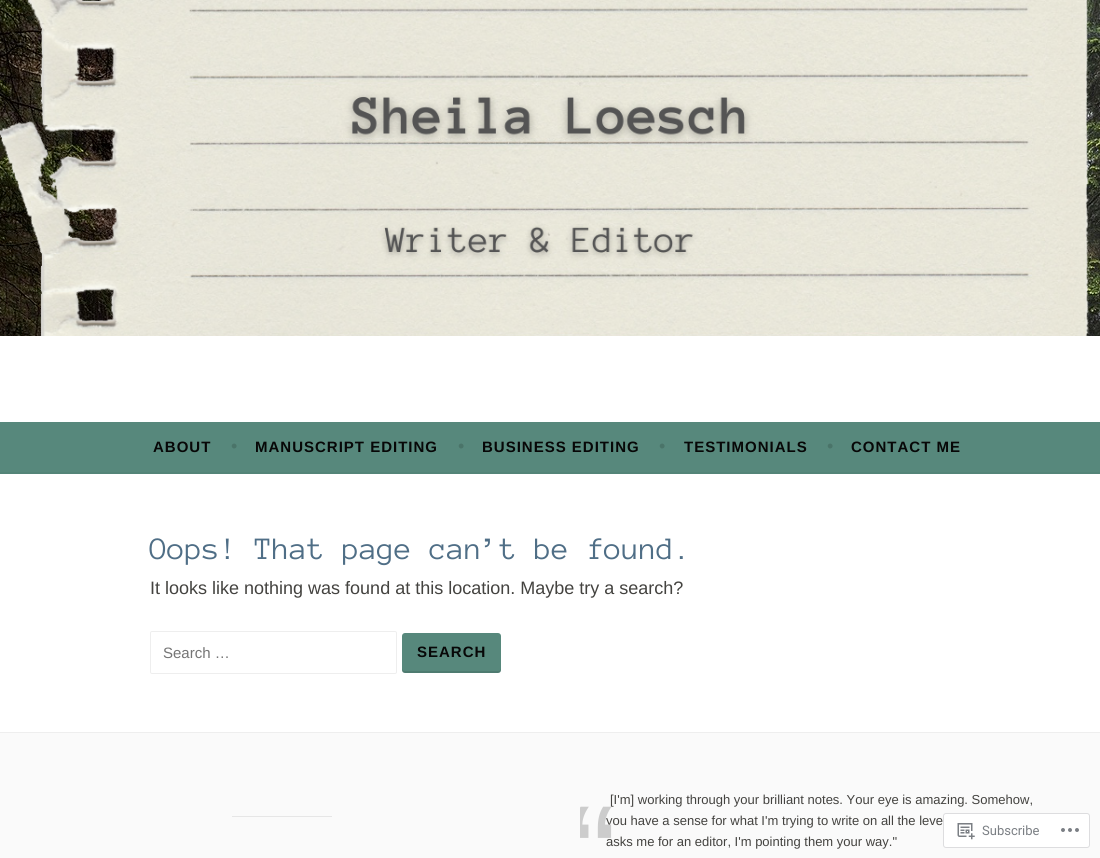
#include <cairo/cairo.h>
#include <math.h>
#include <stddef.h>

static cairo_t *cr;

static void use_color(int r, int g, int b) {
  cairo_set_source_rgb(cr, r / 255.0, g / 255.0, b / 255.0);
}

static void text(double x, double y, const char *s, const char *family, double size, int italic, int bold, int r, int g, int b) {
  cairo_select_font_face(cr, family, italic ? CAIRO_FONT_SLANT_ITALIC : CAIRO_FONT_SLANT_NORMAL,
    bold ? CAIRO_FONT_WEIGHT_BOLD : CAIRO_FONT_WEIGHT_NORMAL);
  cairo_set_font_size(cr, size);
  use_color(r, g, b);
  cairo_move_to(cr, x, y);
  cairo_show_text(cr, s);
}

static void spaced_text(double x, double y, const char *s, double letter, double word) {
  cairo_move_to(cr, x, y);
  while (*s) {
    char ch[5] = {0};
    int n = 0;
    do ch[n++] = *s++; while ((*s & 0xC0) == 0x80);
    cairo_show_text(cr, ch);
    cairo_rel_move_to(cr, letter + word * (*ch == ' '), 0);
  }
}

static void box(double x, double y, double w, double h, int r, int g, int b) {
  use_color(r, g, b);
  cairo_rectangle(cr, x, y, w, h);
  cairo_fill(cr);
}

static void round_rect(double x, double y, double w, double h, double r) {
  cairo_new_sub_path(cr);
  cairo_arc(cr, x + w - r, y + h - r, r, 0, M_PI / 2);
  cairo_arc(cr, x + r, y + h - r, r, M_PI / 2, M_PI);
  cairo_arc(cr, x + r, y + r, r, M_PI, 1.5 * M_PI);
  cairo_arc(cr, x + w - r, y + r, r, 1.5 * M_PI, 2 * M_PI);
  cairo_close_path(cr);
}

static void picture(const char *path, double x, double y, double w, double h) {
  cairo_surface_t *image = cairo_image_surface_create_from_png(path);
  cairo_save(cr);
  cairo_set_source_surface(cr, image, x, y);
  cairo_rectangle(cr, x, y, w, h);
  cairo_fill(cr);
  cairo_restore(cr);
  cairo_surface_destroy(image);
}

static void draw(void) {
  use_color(255, 255, 255);
  cairo_paint(cr);
  picture("img_01.png", 0, 0, 1100, 336);
  picture("img_02.png", 0, 0, 1089, 336);
  box(0, 422, 1100, 50, 87, 136, 124);
  box(0, 472, 1100, 2, 84, 132, 120);
  round_rect(150.5, 631.5, 246, 42, 1.5);
  use_color(238, 238, 238);
  cairo_set_line_width(cr, 1);
  cairo_stroke(cr);
  use_color(87, 136, 124);
  round_rect(402, 633, 99, 40, 3);
  cairo_fill(cr);
  cairo_set_source_rgba(cr, 0, 0, 0, 0.1);
  cairo_new_path(cr);
  cairo_move_to(cr, 402, 668);
  cairo_line_to(cr, 402, 670);
  cairo_curve_to(cr, 402, 672, 403, 673, 405, 673);
  cairo_line_to(cr, 498, 673);
  cairo_curve_to(cr, 500, 673, 501, 672, 501, 670);
  cairo_line_to(cr, 501, 668);
  cairo_curve_to(cr, 501, 670, 500, 671, 498, 671);
  cairo_line_to(cr, 405, 671);
  cairo_curve_to(cr, 403, 671, 402, 670, 402, 668);
  cairo_close_path(cr);
  cairo_fill(cr);
  box(0, 733, 1100, 125, 250, 250, 250);
  box(0, 732, 1100, 1, 238, 238, 238);
  box(232, 816, 100, 1, 230, 230, 230);
  cairo_set_source_rgba(cr, 1, 1, 1, 0.98);
  round_rect(943.5, 813.5, 146, 34, 2.5);
  cairo_fill_preserve(cr);
  use_color(221, 221, 223);
  cairo_stroke(cr);
  picture("img_03.png", 957, 823, 18, 17);
  picture("img_04.png", 1061, 828, 18, 4);
  cairo_select_font_face(cr, "Arimo", CAIRO_FONT_SLANT_NORMAL, CAIRO_FONT_WEIGHT_BOLD);
  cairo_set_font_size(cr, 15);
  use_color(7, 7, 7);
  spaced_text(153, 452, "ABOUT", 1, 0);
  text(231, 452, "•", "Arimo", 18, 0, 0, 74, 116, 105);
  cairo_select_font_face(cr, "Arimo", CAIRO_FONT_SLANT_NORMAL, CAIRO_FONT_WEIGHT_BOLD);
  cairo_set_font_size(cr, 15);
  use_color(7, 7, 7);
  spaced_text(255, 452, "MANUSCRIPT EDITING", 1, 0);
  text(458, 452, "•", "Arimo", 18, 0, 0, 74, 116, 105);
  cairo_select_font_face(cr, "Arimo", CAIRO_FONT_SLANT_NORMAL, CAIRO_FONT_WEIGHT_BOLD);
  cairo_set_font_size(cr, 15);
  use_color(7, 7, 7);
  spaced_text(482, 452, "BUSINESS EDITING", 1, 0);
  text(659, 452, "•", "Arimo", 18, 0, 0, 74, 116, 105);
  cairo_select_font_face(cr, "Arimo", CAIRO_FONT_SLANT_NORMAL, CAIRO_FONT_WEIGHT_BOLD);
  cairo_set_font_size(cr, 15);
  use_color(7, 7, 7);
  spaced_text(684, 452, "TESTIMONIALS", 1, 0);
  text(827, 452, "•", "Arimo", 18, 0, 0, 74, 116, 105);
  cairo_select_font_face(cr, "Arimo", CAIRO_FONT_SLANT_NORMAL, CAIRO_FONT_WEIGHT_BOLD);
  cairo_set_font_size(cr, 15);
  use_color(7, 7, 7);
  spaced_text(851, 452, "CONTACT ME", 1, 0);
  text(150, 559, "Oops! That page can’t be found.", "Anonymous Pro", 32, 0, 0, 79, 110, 134);
  text(150, 594, "It looks like nothing was found at this location. Maybe try a search?", "Arimo", 18, 0, 0, 68, 67, 64);
  text(163, 658, "Search …", "Arimo", 15, 0, 0, 117, 117, 117);
  cairo_select_font_face(cr, "Arimo", CAIRO_FONT_SLANT_NORMAL, CAIRO_FONT_WEIGHT_BOLD);
  use_color(7, 7, 7);
  spaced_text(417, 657, "SEARCH", 1, 0);
  text(610, 804, "[I'm] working through your brilliant notes. Your eye is amazing. Somehow,", "Arimo", 13, 0, 0, 68, 67, 64);
  text(606, 825, "you have a sense for what I'm trying to write on all the leve", "Arimo", 13, 0, 0, 68, 67, 64);
  cairo_save(cr);
  cairo_rectangle(cr, 580, 790, 476, 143);
  cairo_clip(cr);
  text(570, 903, "“", "Arimo", 140, 0, 0, 204, 204, 204);
  cairo_restore(cr);
  text(606, 846, "asks me for an editor, I'm pointing them your way.\"", "Arimo", 13, 0, 0, 68, 67, 64);
  text(982, 835, "Subscribe", "Roboto", 13, 0, 0, 123, 127, 132);
}

int main(void) {
  cairo_surface_t *surface = cairo_image_surface_create(CAIRO_FORMAT_RGB24, 1100, 858);
  cr = cairo_create(surface);
  cairo_font_options_t *options = cairo_font_options_create();
  cairo_font_options_set_hint_metrics(options, CAIRO_HINT_METRICS_OFF);
  cairo_font_options_set_hint_style(options, CAIRO_HINT_STYLE_NONE);
  cairo_set_font_options(cr, options);
  cairo_set_miter_limit(cr, 4);
  draw();
  cairo_surface_write_to_png(surface, "out.png");
  cairo_font_options_destroy(options);
  cairo_destroy(cr);
  cairo_surface_destroy(surface);
  return 0;
}
